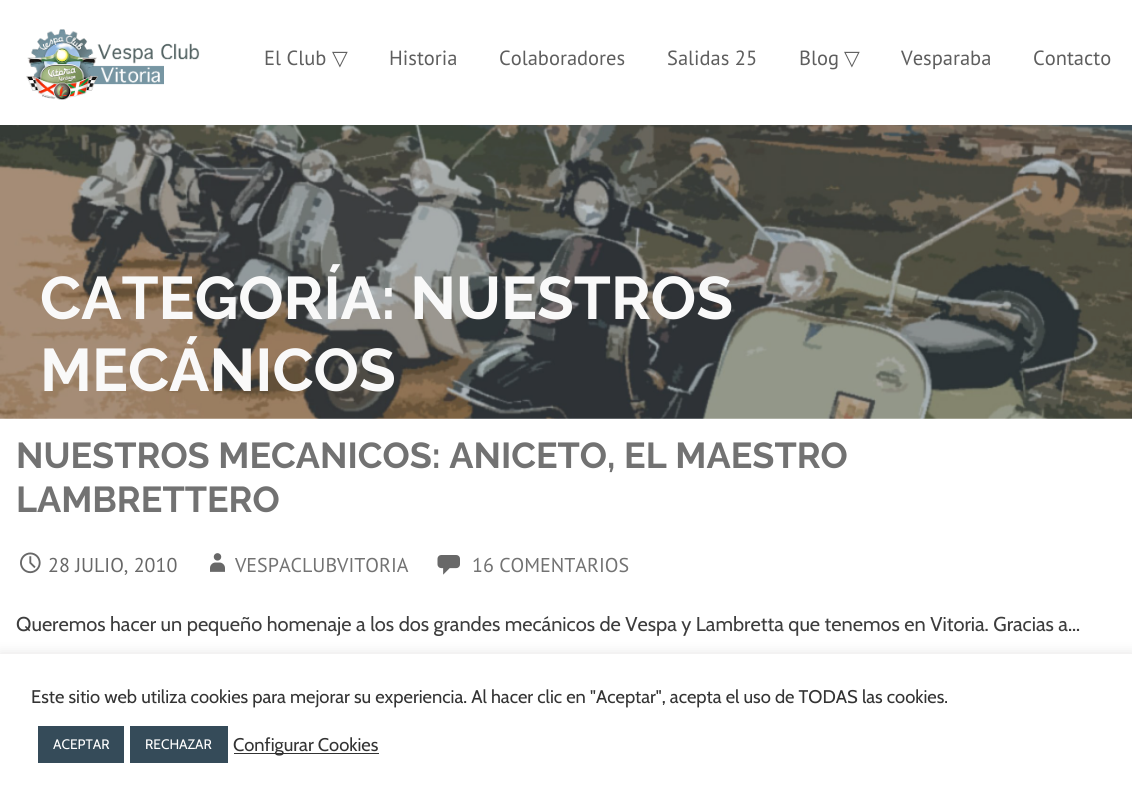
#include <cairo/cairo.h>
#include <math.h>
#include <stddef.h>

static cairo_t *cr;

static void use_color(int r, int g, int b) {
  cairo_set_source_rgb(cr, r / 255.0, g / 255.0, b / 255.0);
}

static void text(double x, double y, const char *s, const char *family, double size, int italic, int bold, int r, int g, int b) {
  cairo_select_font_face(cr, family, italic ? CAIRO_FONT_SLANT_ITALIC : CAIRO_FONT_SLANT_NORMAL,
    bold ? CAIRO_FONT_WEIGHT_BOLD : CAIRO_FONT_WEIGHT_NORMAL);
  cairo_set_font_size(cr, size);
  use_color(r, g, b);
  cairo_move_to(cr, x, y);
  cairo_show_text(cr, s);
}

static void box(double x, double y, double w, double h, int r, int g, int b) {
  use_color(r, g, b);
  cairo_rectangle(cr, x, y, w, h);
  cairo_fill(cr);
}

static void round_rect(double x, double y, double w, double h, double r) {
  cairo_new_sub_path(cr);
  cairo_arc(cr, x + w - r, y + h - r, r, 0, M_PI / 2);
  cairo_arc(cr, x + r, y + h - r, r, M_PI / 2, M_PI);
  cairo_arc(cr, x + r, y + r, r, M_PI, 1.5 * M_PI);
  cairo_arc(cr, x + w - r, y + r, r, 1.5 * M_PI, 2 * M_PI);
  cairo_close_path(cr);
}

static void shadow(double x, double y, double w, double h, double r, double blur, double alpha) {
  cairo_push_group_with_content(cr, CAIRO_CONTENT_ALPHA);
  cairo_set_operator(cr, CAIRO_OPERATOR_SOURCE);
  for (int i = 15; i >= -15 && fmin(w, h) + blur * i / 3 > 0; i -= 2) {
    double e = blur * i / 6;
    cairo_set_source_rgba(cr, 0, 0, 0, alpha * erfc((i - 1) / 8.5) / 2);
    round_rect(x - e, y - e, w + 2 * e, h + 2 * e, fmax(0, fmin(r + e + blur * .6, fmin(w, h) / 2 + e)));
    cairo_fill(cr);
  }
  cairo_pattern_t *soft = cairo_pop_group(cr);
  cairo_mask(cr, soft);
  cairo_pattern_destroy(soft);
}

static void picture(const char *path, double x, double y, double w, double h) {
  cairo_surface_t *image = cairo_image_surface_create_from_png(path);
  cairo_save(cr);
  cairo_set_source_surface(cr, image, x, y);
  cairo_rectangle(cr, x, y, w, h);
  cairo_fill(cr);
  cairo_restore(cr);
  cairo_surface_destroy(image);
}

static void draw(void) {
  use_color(255, 255, 255);
  cairo_paint(cr);
  picture("img_01.png", 26, 29, 174, 71);
  picture("img_02.png", 0, 125, 1132, 294);
  picture("img_03.png", 20, 552, 21, 22);
  picture("img_04.png", 210, 553, 15, 19);
  picture("img_05.png", 437, 555, 23, 20);
  use_color(172, 171, 171);
  shadow(0, 653, 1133, 146, 0, 6, 0.3);
  box(0, 654, 1132, 145, 255, 255, 255);
  box(38, 726, 86, 37, 53, 75, 89);
  box(130, 726, 98, 37, 53, 75, 89);
  box(234, 753, 145, 1, 51, 51, 51);
  text(264, 65, "El Club", "PT Sans", 20.5, 0, 0, 94, 94, 94);
  text(332, 65, "▽", "DejaVu Sans", 20.5, 0, 0, 94, 94, 94);
  text(389, 65, "Historia", "PT Sans", 20.5, 0, 0, 94, 94, 94);
  text(499, 65, "Colaboradores", "PT Sans", 20.5, 0, 0, 94, 94, 94);
  text(667, 65, "Salidas 25", "PT Sans", 20.5, 0, 0, 94, 94, 94);
  text(799, 65, "Blog", "PT Sans", 20.5, 0, 0, 94, 94, 94);
  text(844, 65, "▽", "DejaVu Sans", 20.5, 0, 0, 94, 94, 94);
  text(901, 65, "Vesparaba", "PT Sans", 20.5, 0, 0, 94, 94, 94);
  text(1033, 65, "Contacto", "PT Sans", 20.5, 0, 0, 94, 94, 94);
  text(40, 319, "CATEGORÍA: NUESTROS", "Raleway", 60, 0, 1, 249, 249, 249);
  text(40, 391, "MECÁNICOS", "Raleway", 60, 0, 1, 249, 249, 249);
  text(16, 468, "NUESTROS MECANICOS: ANICETO, EL MAESTRO", "Raleway", 36, 0, 1, 114, 114, 114);
  text(16, 512, "LAMBRETTERO", "Raleway", 36, 0, 1, 114, 114, 114);
  text(48, 572, "28 JULIO, 2010", "PT Sans", 20, 0, 0, 104, 104, 104);
  text(235, 572, "VESPACLUBVITORIA", "PT Sans", 20, 0, 0, 114, 114, 114);
  text(472, 572, "16 COMENTARIOS", "PT Sans", 20, 0, 0, 114, 114, 114);
  text(16, 631, "Queremos hacer un pequeño homenaje a los dos grandes mecánicos de Vespa y Lambretta que tenemos en Vitoria. Gracias a…", "Cabin", 20, 0, 0, 61, 61, 61);
  text(31, 703, "Este sitio web utiliza cookies para mejorar su experiencia. Al hacer clic en \"Aceptar\", acepta el uso de TODAS las cookies.", "Cabin", 18.33, 0, 0, 51, 51, 51);
  text(53, 749, "ACEPTAR", "Cabin", 13.75, 0, 0, 255, 255, 255);
  text(145, 749, "RECHAZAR", "Cabin", 13.75, 0, 0, 255, 255, 255);
  text(233, 751, "Configurar Cookies", "Cabin", 18.33, 0, 0, 51, 51, 51);
}

int main(void) {
  cairo_surface_t *surface = cairo_image_surface_create(CAIRO_FORMAT_RGB24, 1132, 799);
  cr = cairo_create(surface);
  cairo_font_options_t *options = cairo_font_options_create();
  cairo_font_options_set_hint_metrics(options, CAIRO_HINT_METRICS_OFF);
  cairo_font_options_set_hint_style(options, CAIRO_HINT_STYLE_NONE);
  cairo_set_font_options(cr, options);
  cairo_set_miter_limit(cr, 4);
  draw();
  cairo_surface_write_to_png(surface, "out.png");
  cairo_font_options_destroy(options);
  cairo_destroy(cr);
  cairo_surface_destroy(surface);
  return 0;
}
